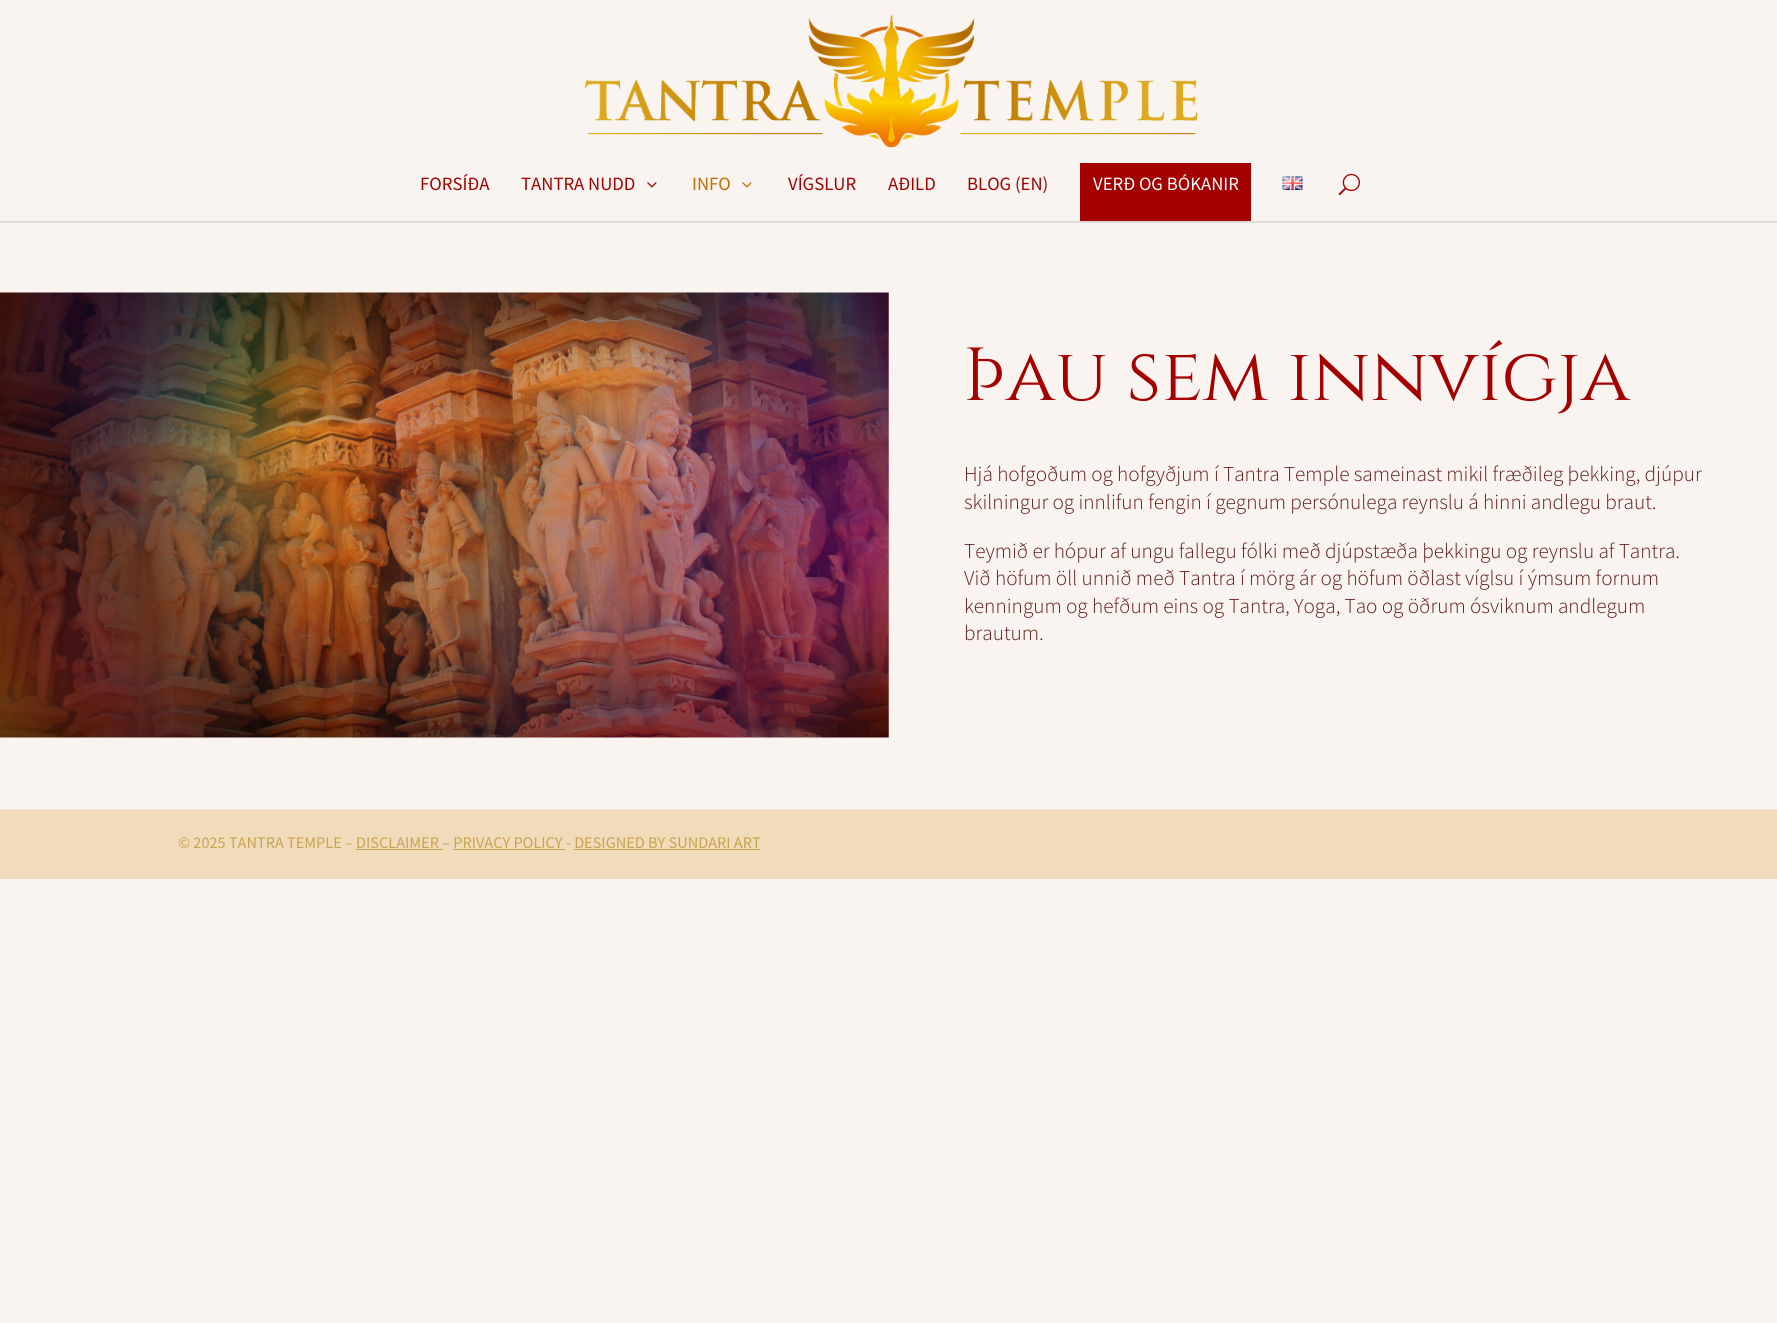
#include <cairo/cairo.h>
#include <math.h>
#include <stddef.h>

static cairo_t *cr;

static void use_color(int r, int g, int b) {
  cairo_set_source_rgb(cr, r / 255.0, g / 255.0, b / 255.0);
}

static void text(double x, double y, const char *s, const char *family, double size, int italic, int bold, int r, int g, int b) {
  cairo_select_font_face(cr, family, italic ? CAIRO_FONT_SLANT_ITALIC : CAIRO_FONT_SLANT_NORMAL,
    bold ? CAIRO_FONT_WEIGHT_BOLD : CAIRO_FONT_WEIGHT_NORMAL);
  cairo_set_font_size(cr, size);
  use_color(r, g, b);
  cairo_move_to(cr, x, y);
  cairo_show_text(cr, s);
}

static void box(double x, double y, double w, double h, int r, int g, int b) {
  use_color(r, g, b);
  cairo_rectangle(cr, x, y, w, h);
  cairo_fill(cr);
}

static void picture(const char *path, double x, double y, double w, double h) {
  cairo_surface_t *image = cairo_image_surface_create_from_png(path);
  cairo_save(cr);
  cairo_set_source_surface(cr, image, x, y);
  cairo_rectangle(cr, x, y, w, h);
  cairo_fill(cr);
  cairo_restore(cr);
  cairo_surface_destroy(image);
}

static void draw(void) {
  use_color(249, 244, 239);
  cairo_paint(cr);
  use_color(224, 220, 215);
  cairo_new_path(cr);
  cairo_move_to(cr, 0, 221);
  cairo_line_to(cr, 0, 223);
  cairo_line_to(cr, 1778, 223);
  cairo_line_to(cr, 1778, 1);
  cairo_line_to(cr, 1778, 221);
  cairo_close_path(cr);
  cairo_fill(cr);
  picture("img_01.png", 584, 14, 614, 134);
  picture("img_02.png", 647, 182, 10, 6);
  picture("img_03.png", 742, 182, 10, 6);
  box(1080, 163, 171, 58, 165, 0, 0);
  picture("img_04.png", 1282, 176, 21, 14);
  picture("img_05.png", 1338, 173, 22, 23);
  picture("img_06.png", 0, 292, 889, 446);
  box(0, 809, 1777, 1, 243, 231, 214);
  box(0, 810, 1777, 69, 242, 219, 186);
  box(356, 849, 87, 1, 197, 164, 82);
  box(453, 849, 112, 1, 197, 164, 82);
  box(574, 849, 186, 1, 197, 164, 82);
  text(420, 190, "FORSÍÐA", "Source Sans Pro", 18.75, 0, 0, 165, 0, 0);
  text(521, 190, "TANTRA NUDD", "Source Sans Pro", 18.75, 0, 0, 165, 0, 0);
  text(692, 190, "INFO", "Source Sans Pro", 18.75, 0, 0, 191, 108, 0);
  text(788, 190, "VÍGSLUR", "Source Sans Pro", 18.75, 0, 0, 165, 0, 0);
  text(888, 190, "AÐILD", "Source Sans Pro", 18.75, 0, 0, 165, 0, 0);
  text(967, 190, "BLOG (EN)", "Source Sans Pro", 18.75, 0, 0, 165, 0, 0);
  text(1093, 190, "VERÐ OG BÓKANIR", "Source Sans Pro", 18.75, 0, 0, 255, 255, 255);
  text(964, 400, "Þau sem innvígja", "Cinzel", 75, 0, 0, 165, 0, 0);
  text(964, 481, "Hjá hofgoðum og hofgyðjum í Tantra Temple sameinast mikil fræðileg þekking, djúpur", "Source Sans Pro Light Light", 21.25, 0, 0, 98, 26, 24);
  text(964, 509, "skilningur og innlifun fengin í gegnum persónulega reynslu á hinni andlegu braut.", "Source Sans Pro Light Light", 21.25, 0, 0, 98, 26, 24);
  text(964, 558, "Teymið er hópur af ungu fallegu fólki með djúpstæða þekkingu og reynslu af Tantra.", "Source Sans Pro Light Light", 21.25, 0, 0, 98, 26, 24);
  text(964, 585, "Við höfum öll unnið með Tantra í mörg ár og höfum öðlast víglsu í ýmsum fornum", "Source Sans Pro Light Light", 21.25, 0, 0, 98, 26, 24);
  text(964, 613, "kenningum og hefðum eins og Tantra, Yoga, Tao og öðrum ósviknum andlegum", "Source Sans Pro Light Light", 21.25, 0, 0, 98, 26, 24);
  text(964, 640, "brautum.", "Source Sans Pro Light Light", 21.25, 0, 0, 98, 26, 24);
  text(178, 848, "© 2025 TANTRA TEMPLE – DISCLAIMER – PRIVACY POLICY - DESIGNED BY SUNDARI ART", "Source Sans Pro", 16.25, 0, 0, 197, 164, 82);
}

int main(void) {
  cairo_surface_t *surface = cairo_image_surface_create(CAIRO_FORMAT_RGB24, 1777, 1323);
  cr = cairo_create(surface);
  cairo_font_options_t *options = cairo_font_options_create();
  cairo_font_options_set_hint_metrics(options, CAIRO_HINT_METRICS_OFF);
  cairo_font_options_set_hint_style(options, CAIRO_HINT_STYLE_NONE);
  cairo_set_font_options(cr, options);
  cairo_set_miter_limit(cr, 4);
  draw();
  cairo_surface_write_to_png(surface, "out.png");
  cairo_font_options_destroy(options);
  cairo_destroy(cr);
  cairo_surface_destroy(surface);
  return 0;
}
